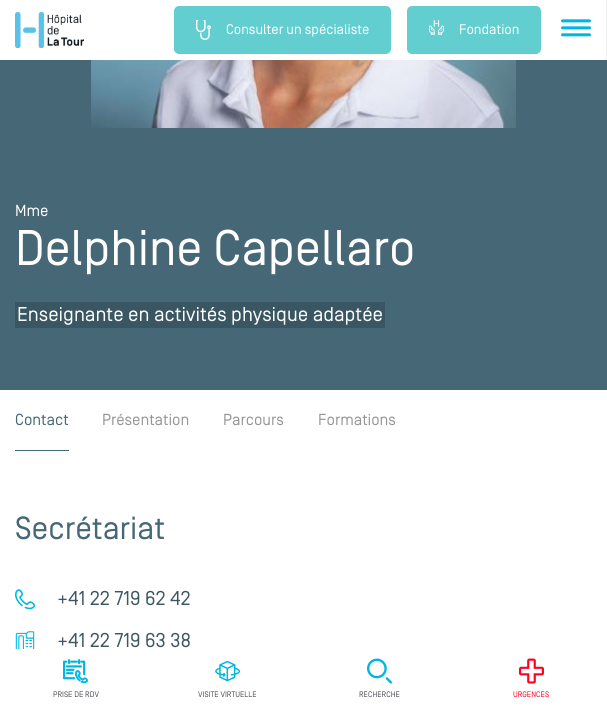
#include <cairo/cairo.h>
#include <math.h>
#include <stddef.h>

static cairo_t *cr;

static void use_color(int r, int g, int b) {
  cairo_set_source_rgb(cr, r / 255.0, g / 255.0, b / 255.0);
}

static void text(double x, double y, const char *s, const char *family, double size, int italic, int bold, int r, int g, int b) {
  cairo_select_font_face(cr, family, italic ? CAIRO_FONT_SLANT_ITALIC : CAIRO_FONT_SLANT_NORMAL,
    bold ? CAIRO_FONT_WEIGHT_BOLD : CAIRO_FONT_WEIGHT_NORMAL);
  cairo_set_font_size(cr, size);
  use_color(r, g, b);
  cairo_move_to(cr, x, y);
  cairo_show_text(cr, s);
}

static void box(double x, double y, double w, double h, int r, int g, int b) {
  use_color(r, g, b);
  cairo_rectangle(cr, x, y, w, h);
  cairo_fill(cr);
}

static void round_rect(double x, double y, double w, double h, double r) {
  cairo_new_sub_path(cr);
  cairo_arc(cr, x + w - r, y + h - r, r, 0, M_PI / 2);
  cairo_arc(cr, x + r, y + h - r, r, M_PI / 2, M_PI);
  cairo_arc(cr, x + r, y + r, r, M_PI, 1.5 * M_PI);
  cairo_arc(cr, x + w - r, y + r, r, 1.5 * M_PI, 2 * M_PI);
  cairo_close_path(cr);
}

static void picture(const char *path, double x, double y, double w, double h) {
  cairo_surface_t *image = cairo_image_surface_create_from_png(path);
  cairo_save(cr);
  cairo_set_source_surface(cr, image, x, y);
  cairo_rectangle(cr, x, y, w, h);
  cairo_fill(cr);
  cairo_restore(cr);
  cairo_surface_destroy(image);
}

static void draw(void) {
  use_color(255, 255, 255);
  cairo_paint(cr);
  box(606, 0, 1, 60, 240, 240, 240);
  picture("img_01.png", 15, 12, 69, 36);
  use_color(99, 206, 208);
  round_rect(175, 7, 215, 46, 4);
  cairo_fill_preserve(cr);
  cairo_stroke(cr);
  picture("img_02.png", 196, 20, 15, 20);
  round_rect(408, 7, 132, 46, 4);
  cairo_fill_preserve(cr);
  cairo_stroke(cr);
  picture("img_03.png", 429, 20, 15, 15);
  picture("img_04.png", 561, 19, 30, 18);
  box(0, 60, 607, 330, 70, 103, 117);
  picture("img_05.png", 91, 60, 425, 68);
  box(15, 302, 370, 26, 57, 86, 98);
  box(15, 450, 54, 1, 70, 103, 117);
  picture("img_06.png", 15, 589, 20, 21);
  picture("img_07.png", 15, 631, 20, 18);
  picture("img_08.png", 63, 659, 25, 25);
  picture("img_09.png", 215, 660, 25, 22);
  picture("img_10.png", 367, 658, 25, 26);
  picture("img_11.png", 519, 658, 25, 26);
  text(226, 34, "Consulter un spécialiste", "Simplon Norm", 14, 0, 0, 255, 255, 255);
  text(459, 34, "Fondation", "Simplon Norm", 14, 0, 0, 255, 255, 255);
  text(15, 216, "Mme", "Simplon Norm", 16, 0, 0, 255, 255, 255);
  text(15, 265, "Delphine Capellaro", "Simplon Norm", 50, 0, 0, 255, 255, 255);
  text(17, 321, "Enseignante en activités physique adaptée", "Simplon Norm", 20, 0, 0, 255, 255, 255);
  text(15, 425, "Contact", "Simplon Norm", 16, 0, 0, 70, 103, 117);
  text(102, 425, "Présentation", "Simplon Norm", 16, 0, 0, 150, 150, 150);
  text(223, 425, "Parcours", "Simplon Norm", 16, 0, 0, 150, 150, 150);
  text(318, 425, "Formations", "Simplon Norm", 16, 0, 0, 150, 150, 150);
  text(15, 539, "Secrétariat", "Simplon Norm", 32, 0, 0, 70, 103, 117);
  text(57, 605, "+41 22 719 62 42", "Simplon Norm", 20, 0, 0, 61, 87, 98);
  text(57, 647, "+41 22 719 63 38", "Simplon Norm", 20, 0, 0, 61, 87, 98);
  text(53, 697, "PRISE DE RDV", "Simplon Norm", 8, 0, 0, 78, 78, 86);
  text(198, 697, "VISITE VIRTUELLE", "Simplon Norm", 8, 0, 0, 78, 78, 86);
  text(359, 697, "RECHERCHE", "Simplon Norm", 8, 0, 0, 78, 78, 86);
  text(513, 697, "URGENCES", "Simplon Norm", 8, 0, 0, 255, 2, 34);
}

int main(void) {
  cairo_surface_t *surface = cairo_image_surface_create(CAIRO_FORMAT_RGB24, 607, 709);
  cr = cairo_create(surface);
  cairo_font_options_t *options = cairo_font_options_create();
  cairo_font_options_set_hint_metrics(options, CAIRO_HINT_METRICS_OFF);
  cairo_font_options_set_hint_style(options, CAIRO_HINT_STYLE_NONE);
  cairo_set_font_options(cr, options);
  cairo_set_miter_limit(cr, 4);
  draw();
  cairo_surface_write_to_png(surface, "out.png");
  cairo_font_options_destroy(options);
  cairo_destroy(cr);
  cairo_surface_destroy(surface);
  return 0;
}
